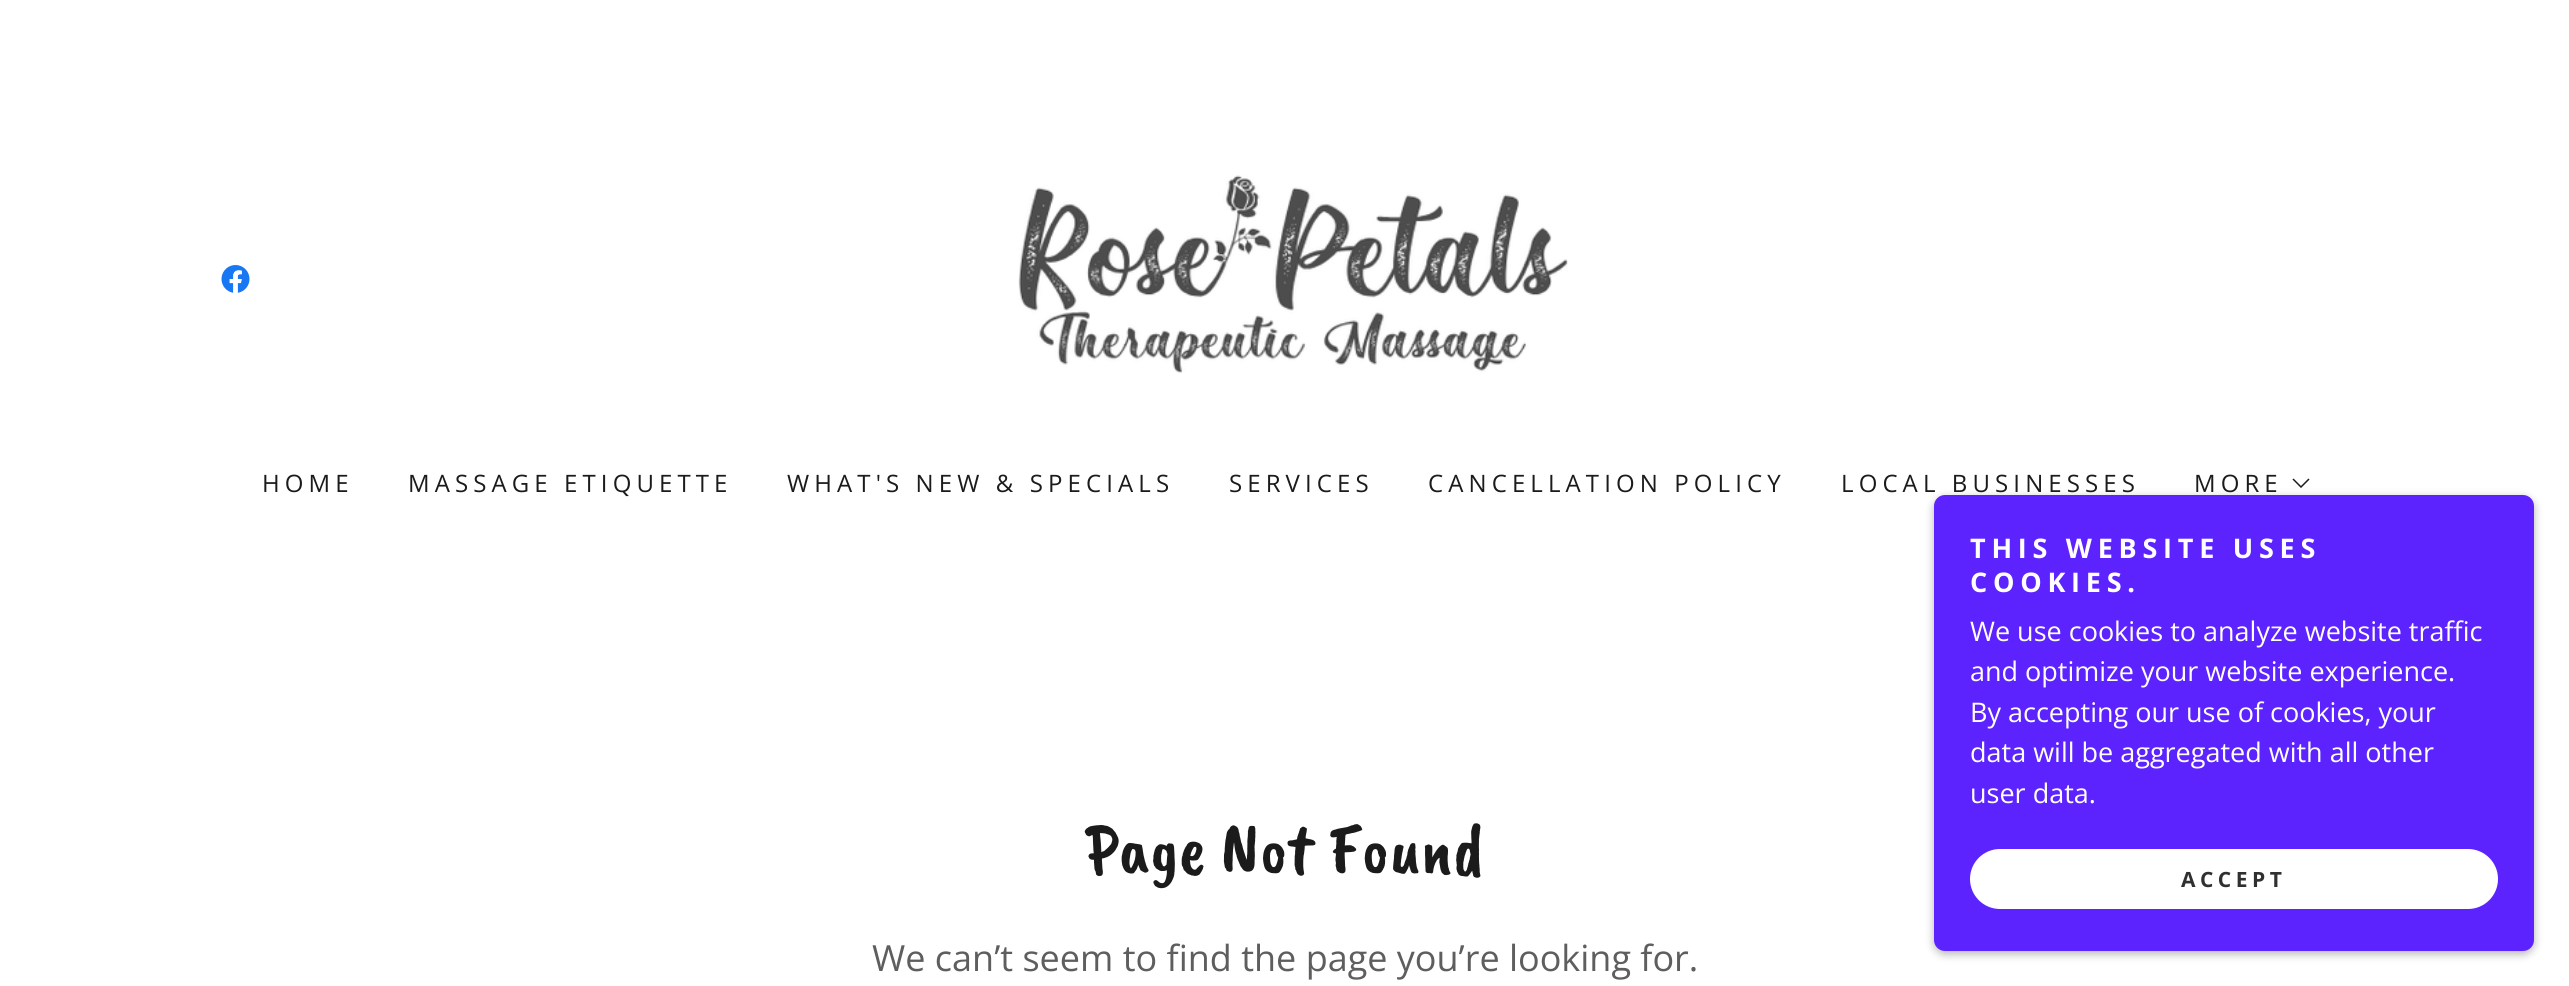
#include <cairo/cairo.h>
#include <math.h>
#include <stddef.h>

static cairo_t *cr;

static void use_color(int r, int g, int b) {
  cairo_set_source_rgb(cr, r / 255.0, g / 255.0, b / 255.0);
}

static void text(double x, double y, const char *s, const char *family, double size, int italic, int bold, int r, int g, int b) {
  cairo_select_font_face(cr, family, italic ? CAIRO_FONT_SLANT_ITALIC : CAIRO_FONT_SLANT_NORMAL,
    bold ? CAIRO_FONT_WEIGHT_BOLD : CAIRO_FONT_WEIGHT_NORMAL);
  cairo_set_font_size(cr, size);
  use_color(r, g, b);
  cairo_move_to(cr, x, y);
  cairo_show_text(cr, s);
}

static void spaced_text(double x, double y, const char *s, double letter, double word) {
  cairo_move_to(cr, x, y);
  while (*s) {
    char ch[5] = {0};
    int n = 0;
    do ch[n++] = *s++; while ((*s & 0xC0) == 0x80);
    cairo_show_text(cr, ch);
    cairo_rel_move_to(cr, letter + word * (*ch == ' '), 0);
  }
}

static void round_rect(double x, double y, double w, double h, double r) {
  cairo_new_sub_path(cr);
  cairo_arc(cr, x + w - r, y + h - r, r, 0, M_PI / 2);
  cairo_arc(cr, x + r, y + h - r, r, M_PI / 2, M_PI);
  cairo_arc(cr, x + r, y + r, r, M_PI, 1.5 * M_PI);
  cairo_arc(cr, x + w - r, y + r, r, 1.5 * M_PI, 2 * M_PI);
  cairo_close_path(cr);
}

static void shadow(double x, double y, double w, double h, double r, double blur, double alpha) {
  cairo_push_group_with_content(cr, CAIRO_CONTENT_ALPHA);
  cairo_set_operator(cr, CAIRO_OPERATOR_SOURCE);
  for (int i = 15; i >= -15 && fmin(w, h) + blur * i / 3 > 0; i -= 2) {
    double e = blur * i / 6;
    cairo_set_source_rgba(cr, 0, 0, 0, alpha * erfc((i - 1) / 8.5) / 2);
    round_rect(x - e, y - e, w + 2 * e, h + 2 * e, fmax(0, fmin(r + e + blur * .6, fmin(w, h) / 2 + e)));
    cairo_fill(cr);
  }
  cairo_pattern_t *soft = cairo_pop_group(cr);
  cairo_mask(cr, soft);
  cairo_pattern_destroy(soft);
}

static void picture(const char *path, double x, double y, double w, double h) {
  cairo_surface_t *image = cairo_image_surface_create_from_png(path);
  cairo_save(cr);
  cairo_set_source_surface(cr, image, x, y);
  cairo_rectangle(cr, x, y, w, h);
  cairo_fill(cr);
  cairo_restore(cr);
  cairo_surface_destroy(image);
}

static void draw(void) {
  use_color(255, 255, 255);
  cairo_paint(cr);
  picture("img_01.png", 221, 265, 29, 28);
  picture("img_02.png", 1018, 175, 550, 198);
  cairo_new_path(cr);
  cairo_move_to(cr, 2301, 487);
  cairo_line_to(cr, 2300.5, 487);
  cairo_close_path(cr);
  cairo_move_to(cr, 2301, 487);
  cairo_line_to(cr, 2309, 479);
  cairo_line_to(cr, 2301, 487);
  cairo_line_to(cr, 2293, 479);
  cairo_close_path(cr);
  use_color(27, 27, 27);
  cairo_set_line_width(cr, 1.5);
  cairo_set_line_cap(cr, CAIRO_LINE_CAP_SQUARE);
  cairo_stroke(cr);
  use_color(0, 0, 0);
  shadow(1934, 498, 600, 456, 11, 4.5, 0.3);
  use_color(93, 35, 255);
  round_rect(1934, 495, 600, 456, 11);
  cairo_fill(cr);
  use_color(255, 255, 255);
  round_rect(1970, 849, 528, 60, 30);
  cairo_fill(cr);
  cairo_select_font_face(cr, "Open Sans", CAIRO_FONT_SLANT_NORMAL, CAIRO_FONT_WEIGHT_NORMAL);
  cairo_set_font_size(cr, 24);
  use_color(27, 27, 27);
  spaced_text(262, 492, "HOME", 5.1, 0);
  spaced_text(408, 492, "MASSAGE ETIQUETTE", 5.1, 0);
  spaced_text(787, 492, "WHAT'S NEW & SPECIALS", 5.1, 0);
  spaced_text(1229, 492, "SERVICES", 5.1, 0);
  spaced_text(1428, 492, "CANCELLATION POLICY", 5.1, 0);
  spaced_text(1841, 492, "LOCAL BUSINESSES", 5.1, 0);
  spaced_text(2194, 492, "MORE", 5.1, 0);
  text(1085, 873, "Page Not Found", "Caveat Brush", 72, 0, 0, 27, 27, 27);
  text(872, 971, "We can’t seem to find the page you’re looking for.", "Open Sans", 36, 0, 0, 94, 94, 94);
  cairo_select_font_face(cr, "Open Sans", CAIRO_FONT_SLANT_NORMAL, CAIRO_FONT_WEIGHT_BOLD);
  cairo_set_font_size(cr, 27);
  use_color(255, 255, 255);
  spaced_text(1970, 558, "THIS WEBSITE USES", 5.75, 0);
  spaced_text(1970, 592, "COOKIES.", 5.75, 0);
  text(1970, 641, "We use cookies to analyze website traffic", "Open Sans", 27, 0, 0, 255, 255, 255);
  text(1970, 681, "and optimize your website experience.", "Open Sans", 27, 0, 0, 255, 255, 255);
  text(1970, 722, "By accepting our use of cookies, your", "Open Sans", 27, 0, 0, 255, 255, 255);
  text(1970, 762, "data will be aggregated with all other", "Open Sans", 27, 0, 0, 255, 255, 255);
  text(1970, 803, "user data.", "Open Sans", 27, 0, 0, 255, 255, 255);
  cairo_select_font_face(cr, "Open Sans", CAIRO_FONT_SLANT_NORMAL, CAIRO_FONT_WEIGHT_BOLD);
  cairo_set_font_size(cr, 21);
  use_color(48, 48, 48);
  spaced_text(2181, 887, "ACCEPT", 4.5, 0);
}

int main(void) {
  cairo_surface_t *surface = cairo_image_surface_create(CAIRO_FORMAT_RGB24, 2569, 986);
  cr = cairo_create(surface);
  cairo_font_options_t *options = cairo_font_options_create();
  cairo_font_options_set_hint_metrics(options, CAIRO_HINT_METRICS_OFF);
  cairo_font_options_set_hint_style(options, CAIRO_HINT_STYLE_NONE);
  cairo_set_font_options(cr, options);
  cairo_set_miter_limit(cr, 4);
  draw();
  cairo_surface_write_to_png(surface, "out.png");
  cairo_font_options_destroy(options);
  cairo_destroy(cr);
  cairo_surface_destroy(surface);
  return 0;
}
